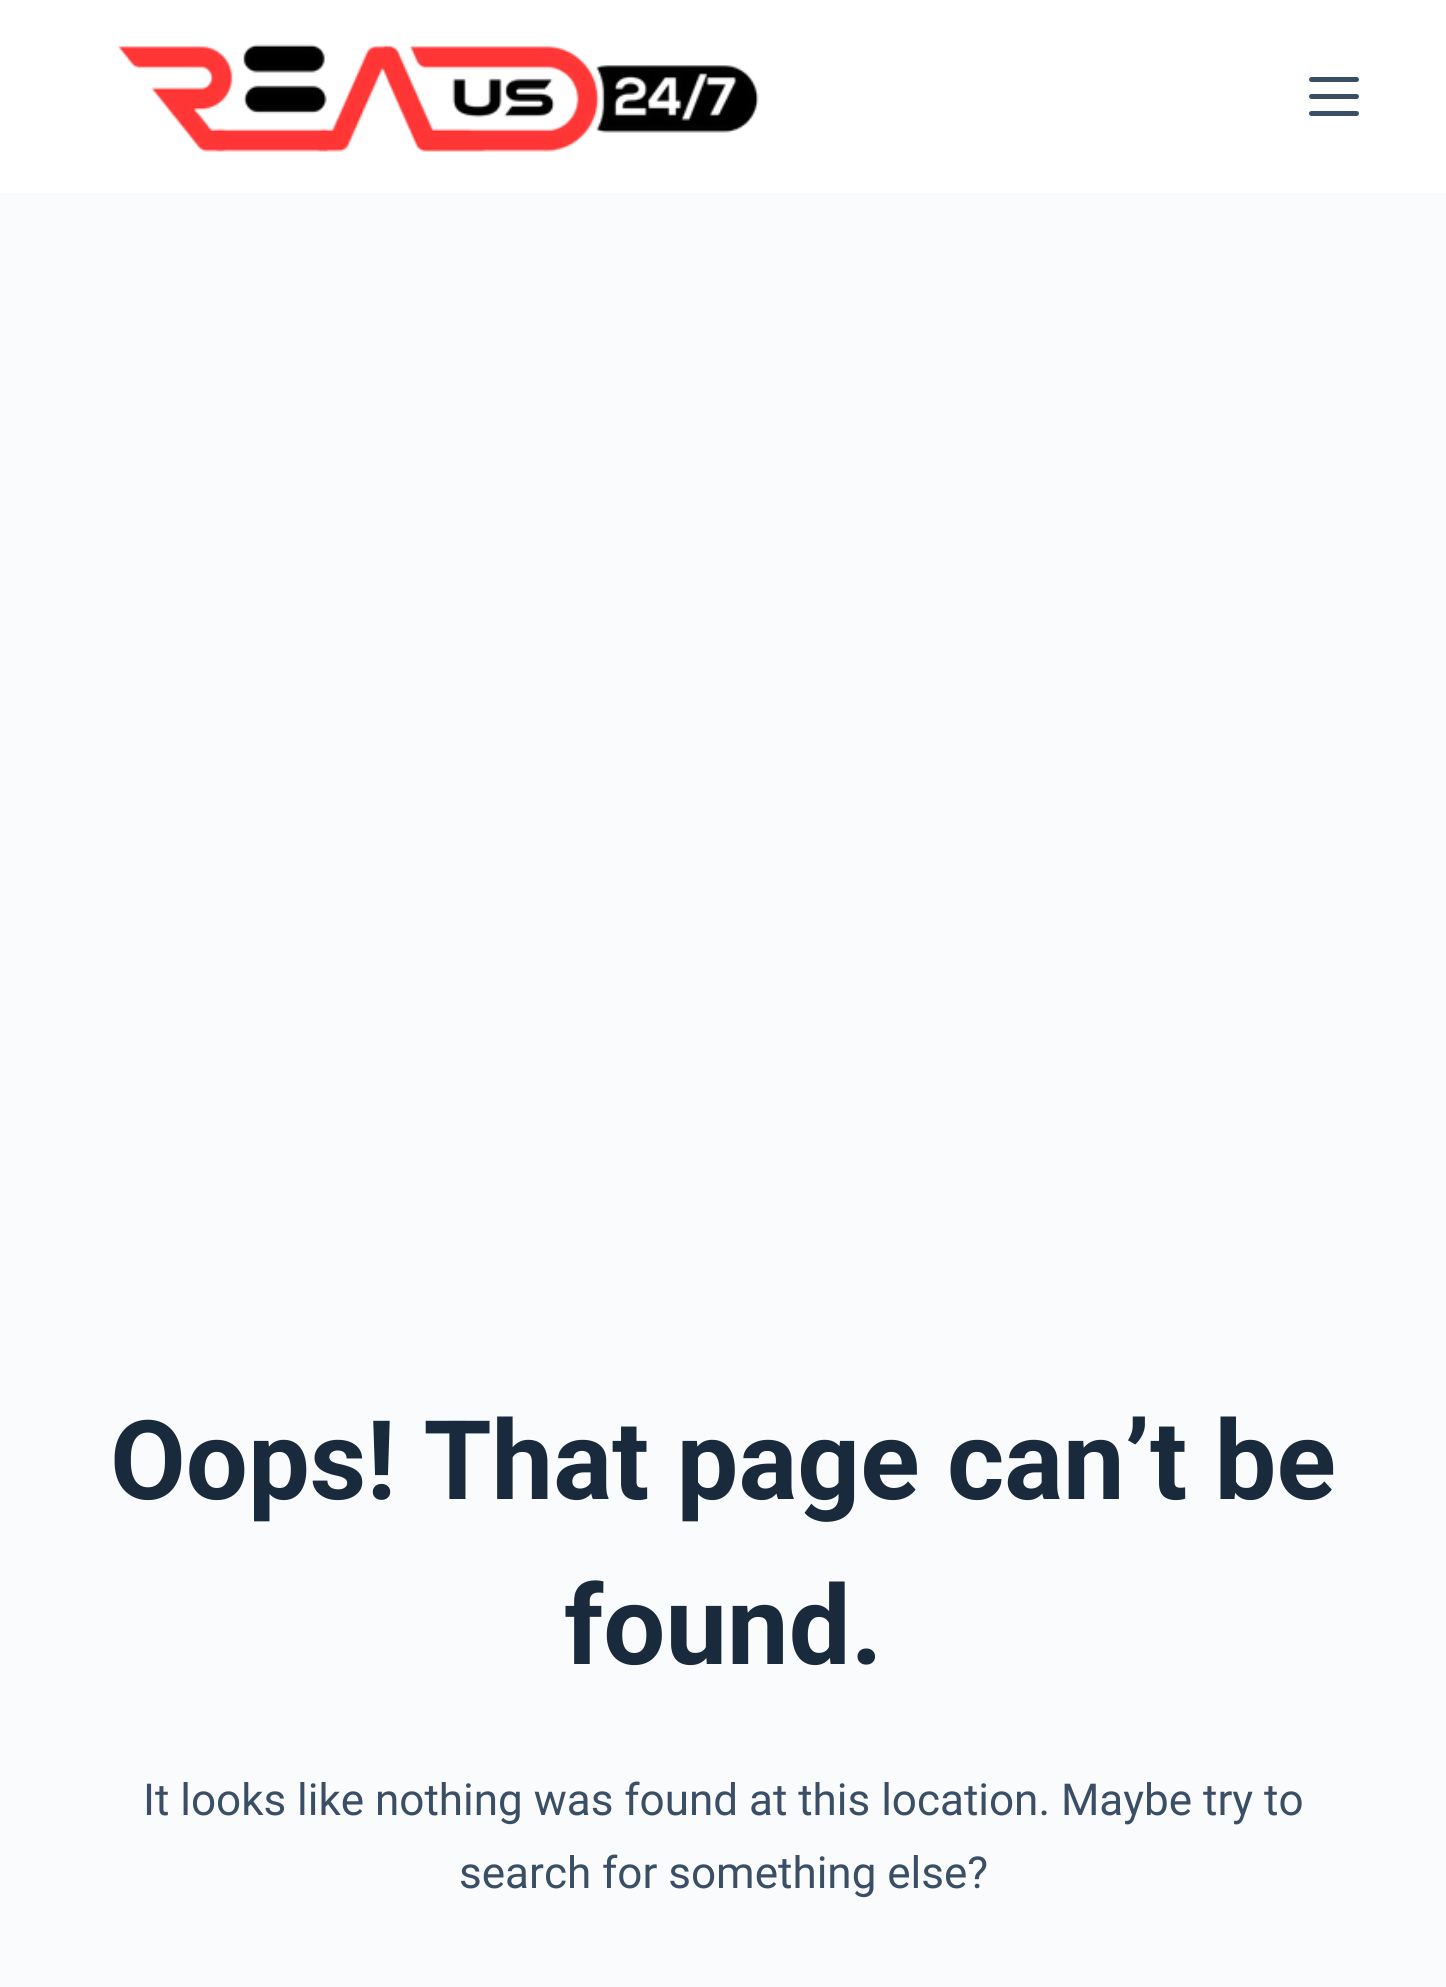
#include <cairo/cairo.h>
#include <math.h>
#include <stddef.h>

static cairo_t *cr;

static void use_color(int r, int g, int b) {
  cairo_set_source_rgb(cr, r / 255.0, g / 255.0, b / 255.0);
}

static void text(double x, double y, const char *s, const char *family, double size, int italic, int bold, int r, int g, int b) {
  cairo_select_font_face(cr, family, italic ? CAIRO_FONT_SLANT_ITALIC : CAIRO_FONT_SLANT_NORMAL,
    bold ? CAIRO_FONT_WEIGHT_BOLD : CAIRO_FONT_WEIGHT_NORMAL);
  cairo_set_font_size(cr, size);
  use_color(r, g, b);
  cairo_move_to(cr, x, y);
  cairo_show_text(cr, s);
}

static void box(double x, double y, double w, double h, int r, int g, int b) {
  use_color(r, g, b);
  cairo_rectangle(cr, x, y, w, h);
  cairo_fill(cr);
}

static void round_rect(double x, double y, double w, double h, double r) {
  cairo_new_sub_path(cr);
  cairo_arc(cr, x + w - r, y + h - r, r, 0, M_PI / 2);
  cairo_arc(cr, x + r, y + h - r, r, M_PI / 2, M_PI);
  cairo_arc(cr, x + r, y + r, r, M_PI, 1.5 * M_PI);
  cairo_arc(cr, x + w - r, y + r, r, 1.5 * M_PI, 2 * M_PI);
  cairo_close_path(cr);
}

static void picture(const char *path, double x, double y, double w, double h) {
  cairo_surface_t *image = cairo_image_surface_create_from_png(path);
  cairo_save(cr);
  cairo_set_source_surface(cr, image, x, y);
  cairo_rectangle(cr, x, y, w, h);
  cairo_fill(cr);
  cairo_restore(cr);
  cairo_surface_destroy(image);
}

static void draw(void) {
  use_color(250, 251, 252);
  cairo_paint(cr);
  box(0, 0, 1446, 193, 255, 255, 255);
  picture("img_01.png", 118, 44, 641, 108);
  use_color(58, 79, 102);
  round_rect(1309, 77, 50, 5, 2.5);
  cairo_fill(cr);
  round_rect(1309, 94, 50, 5, 2.5);
  cairo_fill(cr);
  round_rect(1309, 111, 50, 5, 2.5);
  cairo_fill(cr);
  text(110, 1499, "Oops! That page can’t be", "Roboto", 110, 0, 1, 25, 42, 61);
  text(564, 1664, "found.", "Roboto", 110, 0, 1, 25, 42, 61);
  text(143, 1815, "It looks like nothing was found at this location. Maybe try to", "Roboto", 44, 0, 0, 58, 79, 102);
  text(459, 1888, "search for something else?", "Roboto", 44, 0, 0, 58, 79, 102);
}

int main(void) {
  cairo_surface_t *surface = cairo_image_surface_create(CAIRO_FORMAT_RGB24, 1446, 1987);
  cr = cairo_create(surface);
  cairo_font_options_t *options = cairo_font_options_create();
  cairo_font_options_set_hint_metrics(options, CAIRO_HINT_METRICS_OFF);
  cairo_font_options_set_hint_style(options, CAIRO_HINT_STYLE_NONE);
  cairo_set_font_options(cr, options);
  cairo_set_miter_limit(cr, 4);
  draw();
  cairo_surface_write_to_png(surface, "out.png");
  cairo_font_options_destroy(options);
  cairo_destroy(cr);
  cairo_surface_destroy(surface);
  return 0;
}
